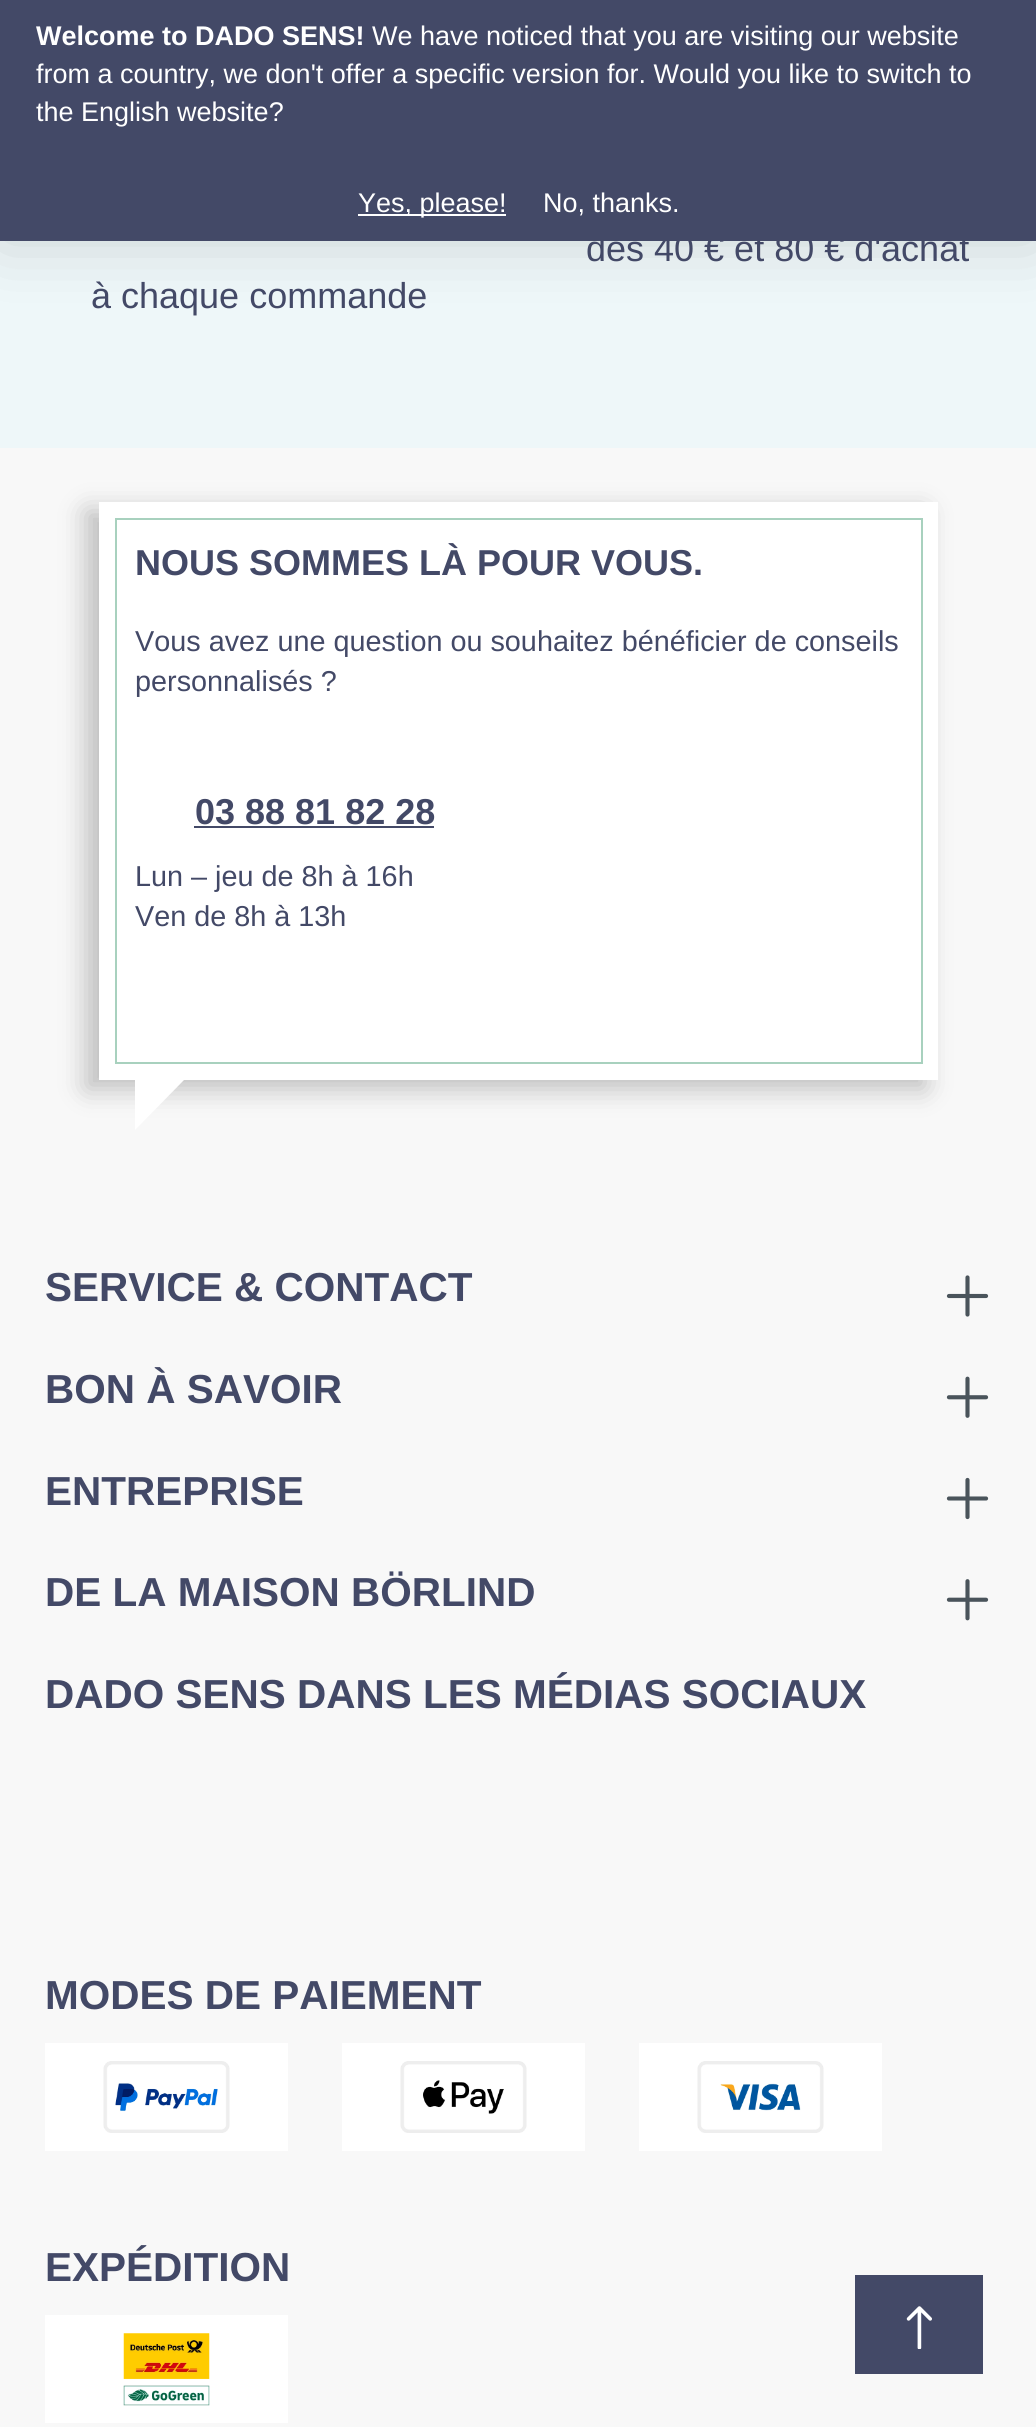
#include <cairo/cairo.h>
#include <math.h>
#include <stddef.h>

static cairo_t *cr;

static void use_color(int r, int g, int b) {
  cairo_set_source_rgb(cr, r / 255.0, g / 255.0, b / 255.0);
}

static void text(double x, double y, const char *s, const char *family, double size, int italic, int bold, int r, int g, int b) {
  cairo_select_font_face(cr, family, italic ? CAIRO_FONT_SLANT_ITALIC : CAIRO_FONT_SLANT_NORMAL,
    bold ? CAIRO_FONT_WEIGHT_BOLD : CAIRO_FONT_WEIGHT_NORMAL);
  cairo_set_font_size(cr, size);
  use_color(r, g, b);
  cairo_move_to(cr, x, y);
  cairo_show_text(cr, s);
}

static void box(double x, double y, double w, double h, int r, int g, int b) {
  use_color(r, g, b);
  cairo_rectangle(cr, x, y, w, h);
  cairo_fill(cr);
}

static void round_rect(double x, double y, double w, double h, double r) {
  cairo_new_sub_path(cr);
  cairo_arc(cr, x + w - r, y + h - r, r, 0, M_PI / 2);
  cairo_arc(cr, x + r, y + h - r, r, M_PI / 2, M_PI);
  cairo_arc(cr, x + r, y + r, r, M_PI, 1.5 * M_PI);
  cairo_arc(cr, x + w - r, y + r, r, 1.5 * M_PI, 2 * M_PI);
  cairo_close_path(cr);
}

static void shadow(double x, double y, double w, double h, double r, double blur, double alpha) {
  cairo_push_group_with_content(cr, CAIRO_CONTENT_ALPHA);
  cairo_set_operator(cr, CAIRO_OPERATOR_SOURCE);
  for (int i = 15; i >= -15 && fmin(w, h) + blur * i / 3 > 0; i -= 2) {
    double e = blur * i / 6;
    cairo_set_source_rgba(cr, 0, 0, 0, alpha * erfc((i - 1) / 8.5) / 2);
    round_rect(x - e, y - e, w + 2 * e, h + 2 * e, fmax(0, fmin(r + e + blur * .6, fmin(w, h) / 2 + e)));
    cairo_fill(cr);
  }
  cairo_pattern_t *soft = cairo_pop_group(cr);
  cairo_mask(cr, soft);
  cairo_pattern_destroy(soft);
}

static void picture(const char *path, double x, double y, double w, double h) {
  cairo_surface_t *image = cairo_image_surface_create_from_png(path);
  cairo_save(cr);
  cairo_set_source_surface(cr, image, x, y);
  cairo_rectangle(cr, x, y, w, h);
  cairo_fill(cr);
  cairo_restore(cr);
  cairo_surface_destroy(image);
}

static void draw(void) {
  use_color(248, 248, 248);
  cairo_paint(cr);
  box(0, 241, 1036, 207, 238, 247, 249);
  use_color(0, 0, 0);
  shadow(0, 0, 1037, 241, 0, 34, 0.15);
  box(0, 0, 1036, 241, 67, 73, 103);
  box(358, 214, 148, 2, 255, 255, 255);
  use_color(0, 0, 0);
  shadow(86, 511, 839, 578, 0, 13.5, 0.24);
  box(99, 502, 839, 578, 255, 255, 255);
  box(194, 826, 240, 2, 67, 73, 103);
  cairo_rectangle(cr, 116, 519, 806, 544);
  use_color(168, 209, 190);
  cairo_stroke(cr);
  use_color(255, 255, 255);
  cairo_new_path(cr);
  cairo_move_to(cr, 135, 1080);
  cairo_line_to(cr, 184, 1080);
  cairo_line_to(cr, 135, 1130);
  cairo_close_path(cr);
  cairo_fill(cr);
  picture("img_01.png", 946, 1275, 43, 42);
  picture("img_02.png", 946, 1376, 43, 42);
  picture("img_03.png", 946, 1477, 43, 43);
  picture("img_04.png", 946, 1579, 43, 42);
  box(45, 2043, 243, 108, 255, 255, 255);
  picture("img_05.png", 103, 2061, 127, 72);
  box(342, 2043, 243, 108, 255, 255, 255);
  picture("img_06.png", 400, 2061, 127, 72);
  box(639, 2043, 243, 108, 255, 255, 255);
  picture("img_07.png", 697, 2061, 127, 72);
  box(45, 2315, 243, 108, 255, 255, 255);
  picture("img_08.png", 123, 2333, 87, 73);
  box(855, 2275, 128, 99, 67, 73, 103);
  picture("img_09.png", 906, 2306, 26, 43);
  text(36, 45, "Welcome to DADO SENS!", "Liberation Sans", 27, 0, 1, 255, 255, 255);
  text(372, 45, "We have noticed that you are visiting our website", "Liberation Sans", 27, 0, 0, 255, 255, 255);
  text(36, 83, "from a country, we don't offer a specific version for. Would you like to switch to", "Liberation Sans", 27, 0, 0, 255, 255, 255);
  text(36, 121, "the English website?", "Liberation Sans", 27, 0, 0, 255, 255, 255);
  text(358, 212, "Yes, please!", "Liberation Sans", 27, 0, 0, 255, 255, 255);
  text(543, 212, "No, thanks.", "Liberation Sans", 27, 0, 0, 255, 255, 255);
  text(586, 261, "dès 40 € et 80 € d'achat", "Liberation Sans", 36, 0, 0, 67, 73, 103);
  text(91, 308, "à chaque commande", "Liberation Sans", 36, 0, 0, 67, 73, 103);
  text(135, 575, "NOUS SOMMES LÀ POUR VOUS.", "Liberation Sans", 36, 0, 1, 67, 73, 103);
  text(135, 651, "Vous avez une question ou souhaitez bénéficier de conseils", "Liberation Sans", 28.8, 0, 0, 67, 73, 103);
  text(135, 691, "personnalisés ?", "Liberation Sans", 28.8, 0, 0, 67, 73, 103);
  text(195, 824, "03 88 81 82 28", "Liberation Sans", 36, 0, 1, 67, 73, 103);
  text(135, 886, "Lun – jeu de 8h à 16h", "Liberation Sans", 28.8, 0, 0, 67, 73, 103);
  text(135, 926, "Ven de 8h à 13h", "Liberation Sans", 28.8, 0, 0, 67, 73, 103);
  text(45, 1301, "SERVICE & CONTACT", "Liberation Sans", 40.5, 0, 1, 67, 73, 103);
  text(45, 1403, "BON À SAVOIR", "Liberation Sans", 40.5, 0, 1, 67, 73, 103);
  text(45, 1505, "ENTREPRISE", "Liberation Sans", 40.5, 0, 1, 67, 73, 103);
  text(45, 1606, "DE LA MAISON BÖRLIND", "Liberation Sans", 40.5, 0, 1, 67, 73, 103);
  text(45, 1708, "DADO SENS DANS LES MÉDIAS SOCIAUX", "Liberation Sans", 40.5, 0, 1, 67, 73, 103);
  text(45, 2009, "MODES DE PAIEMENT", "Liberation Sans", 40.5, 0, 1, 67, 73, 103);
  text(45, 2281, "EXPÉDITION", "Liberation Sans", 40.5, 0, 1, 67, 73, 103);
}

int main(void) {
  cairo_surface_t *surface = cairo_image_surface_create(CAIRO_FORMAT_RGB24, 1036, 2427);
  cr = cairo_create(surface);
  cairo_font_options_t *options = cairo_font_options_create();
  cairo_font_options_set_hint_metrics(options, CAIRO_HINT_METRICS_OFF);
  cairo_font_options_set_hint_style(options, CAIRO_HINT_STYLE_NONE);
  cairo_set_font_options(cr, options);
  cairo_set_miter_limit(cr, 4);
  draw();
  cairo_surface_write_to_png(surface, "out.png");
  cairo_font_options_destroy(options);
  cairo_destroy(cr);
  cairo_surface_destroy(surface);
  return 0;
}
